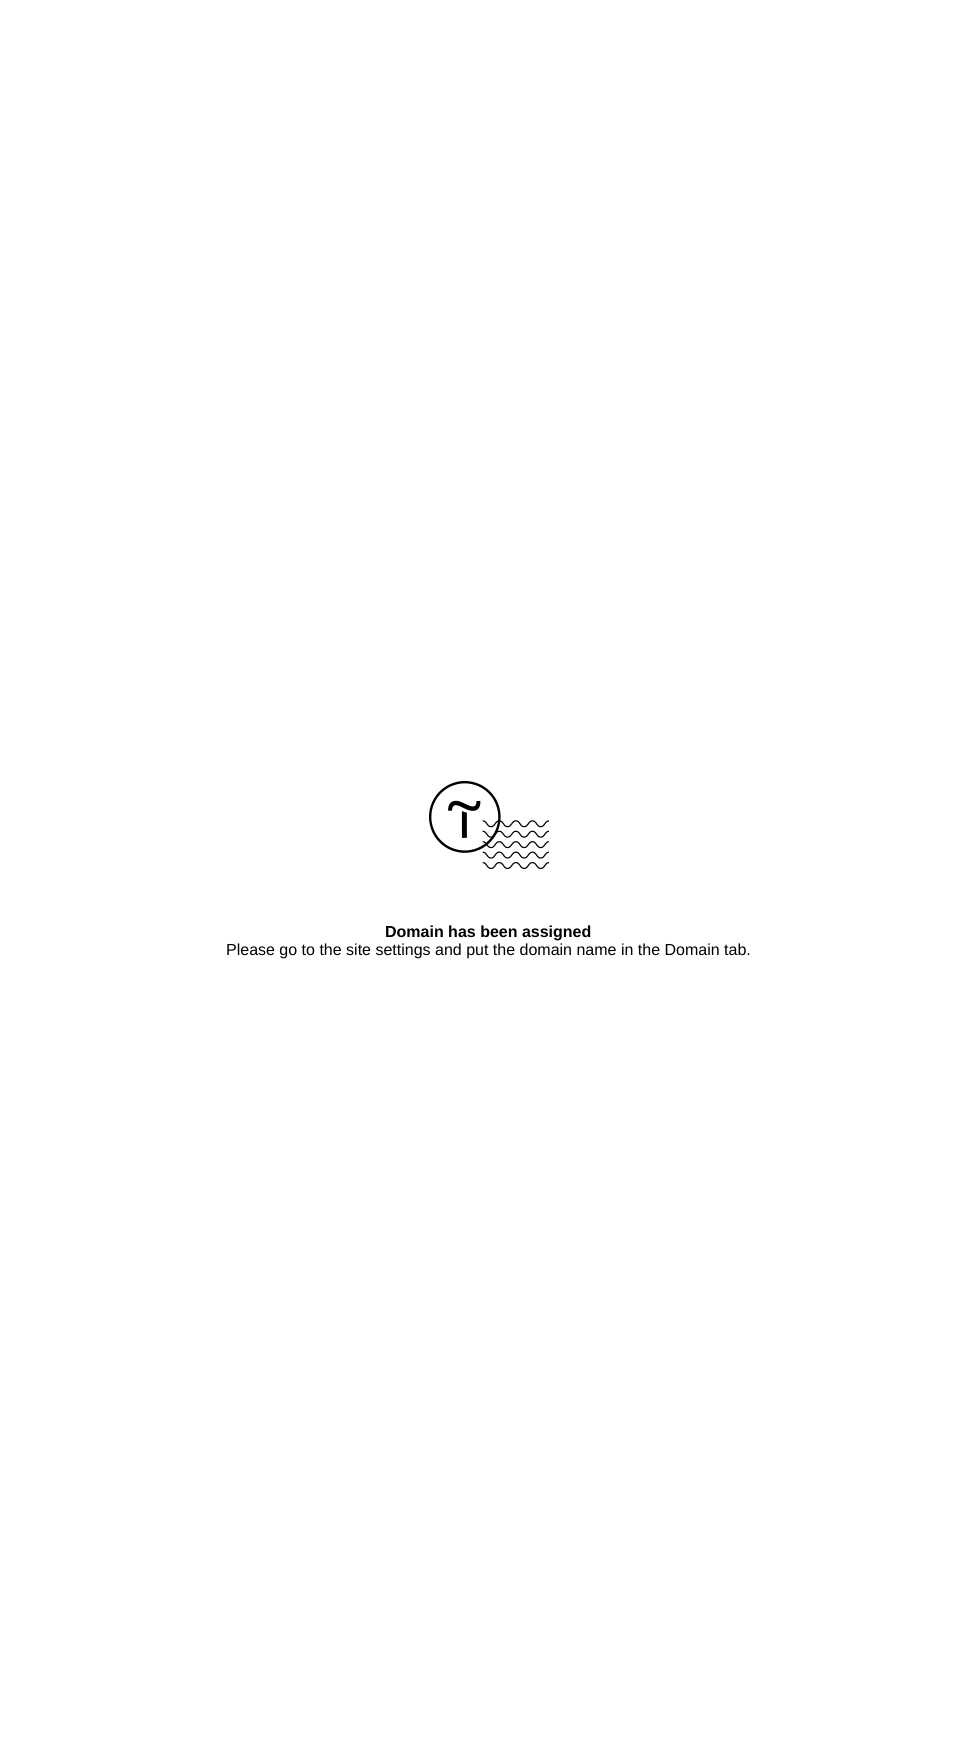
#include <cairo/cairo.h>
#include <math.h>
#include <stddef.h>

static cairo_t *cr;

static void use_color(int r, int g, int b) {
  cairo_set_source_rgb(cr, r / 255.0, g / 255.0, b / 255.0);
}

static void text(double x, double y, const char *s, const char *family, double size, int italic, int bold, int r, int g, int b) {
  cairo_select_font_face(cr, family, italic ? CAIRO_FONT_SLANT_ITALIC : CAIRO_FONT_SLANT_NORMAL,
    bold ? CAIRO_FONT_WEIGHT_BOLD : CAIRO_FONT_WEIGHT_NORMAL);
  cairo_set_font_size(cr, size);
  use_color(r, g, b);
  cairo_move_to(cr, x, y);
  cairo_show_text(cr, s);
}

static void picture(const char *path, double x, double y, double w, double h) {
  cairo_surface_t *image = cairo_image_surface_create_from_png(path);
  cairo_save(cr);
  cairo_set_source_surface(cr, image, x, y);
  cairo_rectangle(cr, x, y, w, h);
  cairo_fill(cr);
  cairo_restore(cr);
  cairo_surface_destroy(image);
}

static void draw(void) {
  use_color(255, 255, 255);
  cairo_paint(cr);
  picture("img_01.png", 429, 781, 120, 88);
  text(385, 937, "Domain has been assigned", "Liberation Sans", 16, 0, 1, 0, 0, 0);
  text(226, 955, "Please go to the site settings and put the domain name in the Domain tab.", "Liberation Sans", 16, 0, 0, 0, 0, 0);
}

int main(void) {
  cairo_surface_t *surface = cairo_image_surface_create(CAIRO_FORMAT_RGB24, 977, 1739);
  cr = cairo_create(surface);
  cairo_font_options_t *options = cairo_font_options_create();
  cairo_font_options_set_hint_metrics(options, CAIRO_HINT_METRICS_OFF);
  cairo_font_options_set_hint_style(options, CAIRO_HINT_STYLE_NONE);
  cairo_set_font_options(cr, options);
  cairo_set_miter_limit(cr, 4);
  draw();
  cairo_surface_write_to_png(surface, "out.png");
  cairo_font_options_destroy(options);
  cairo_destroy(cr);
  cairo_surface_destroy(surface);
  return 0;
}
